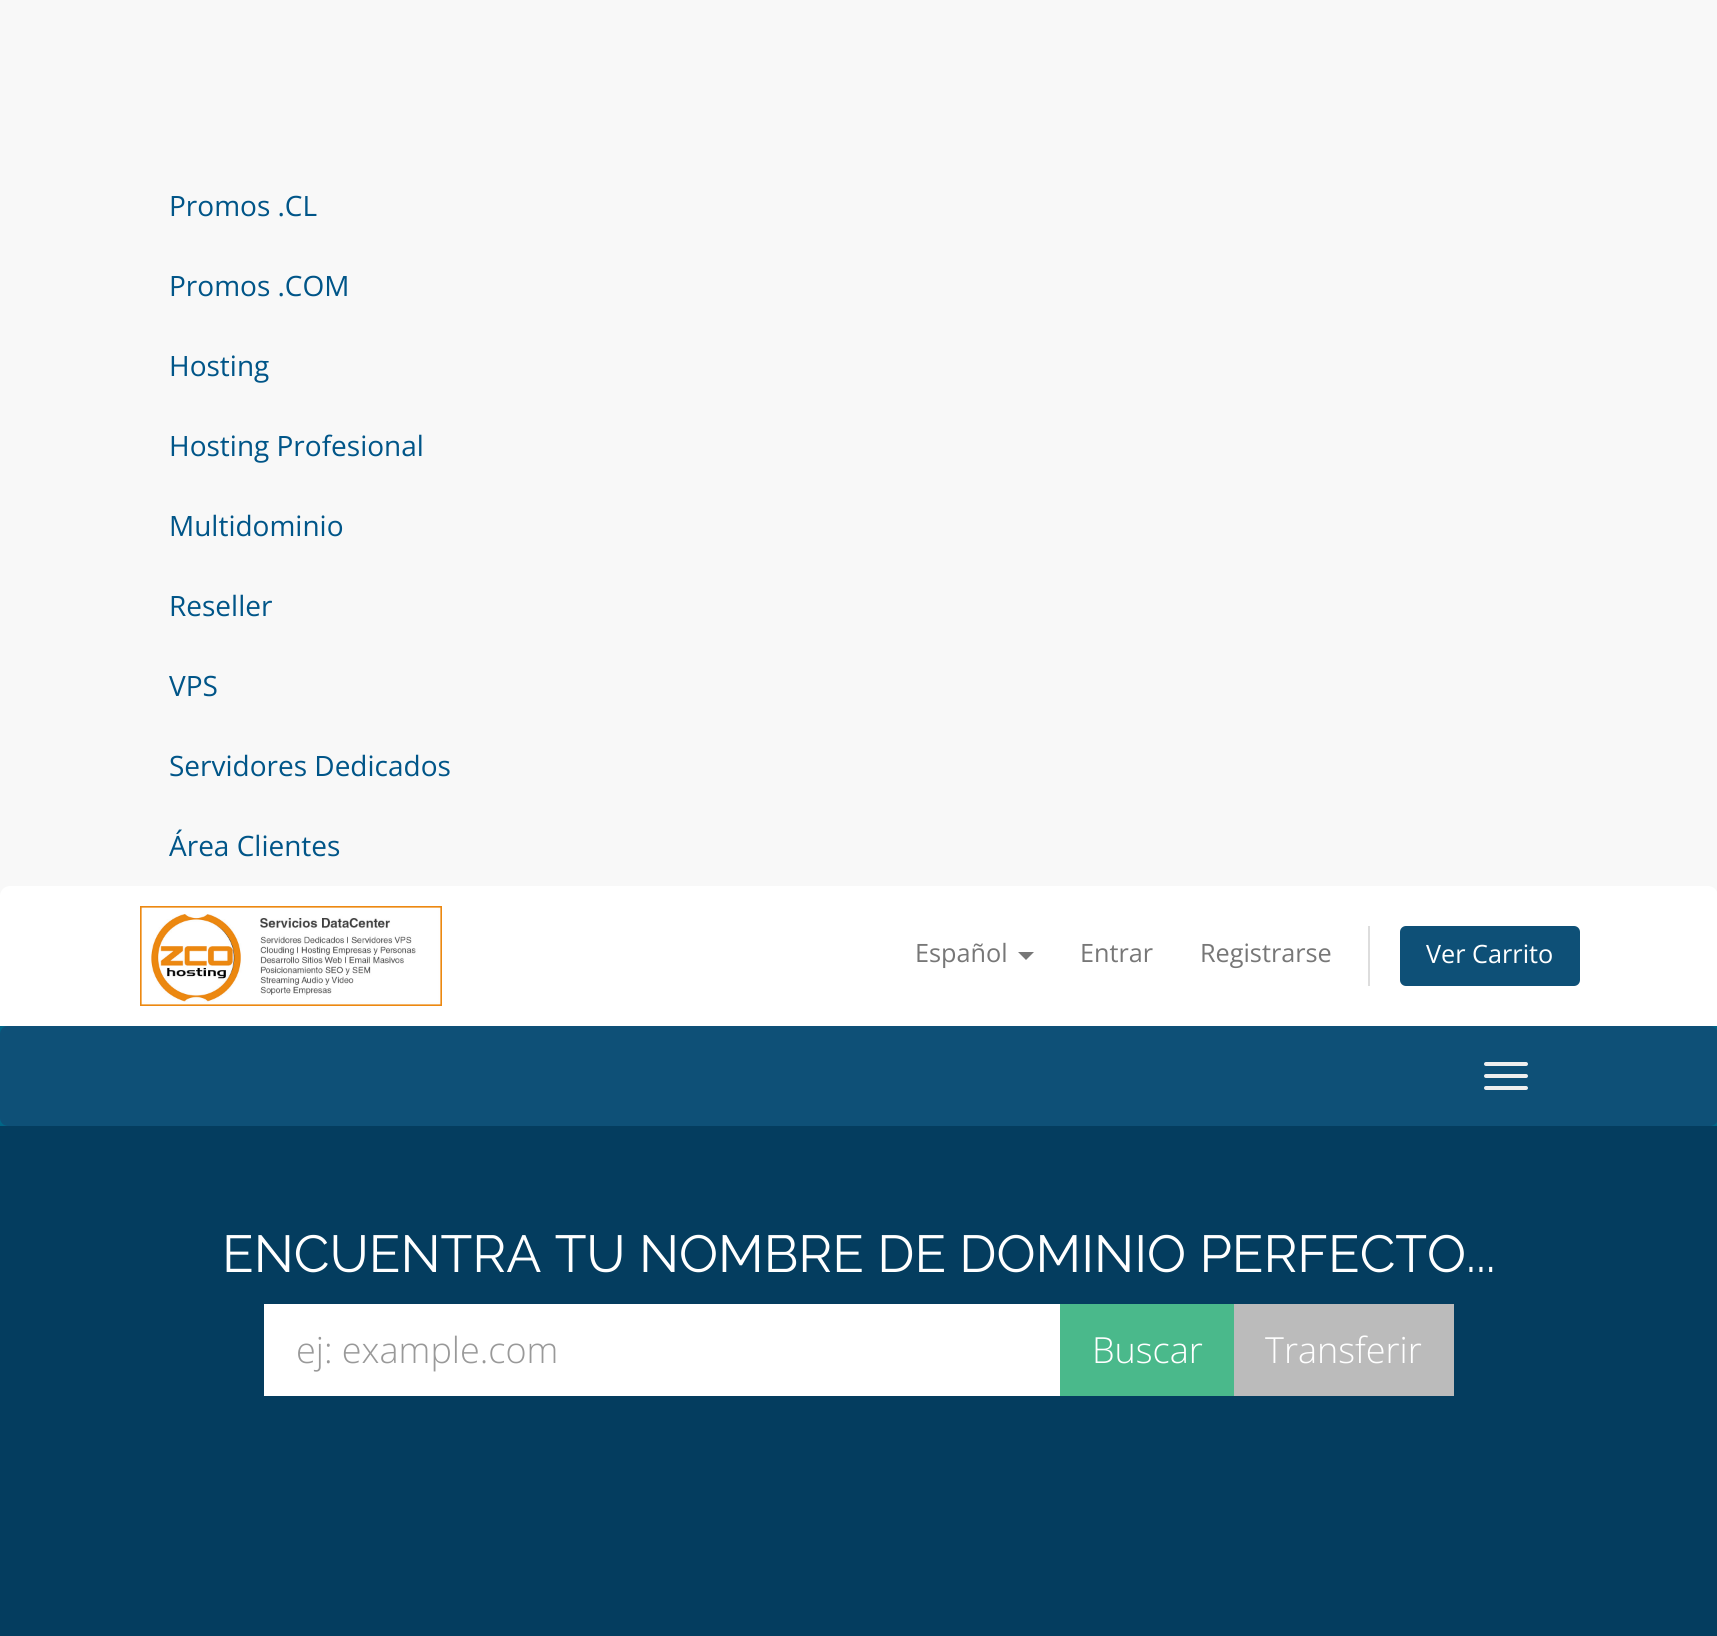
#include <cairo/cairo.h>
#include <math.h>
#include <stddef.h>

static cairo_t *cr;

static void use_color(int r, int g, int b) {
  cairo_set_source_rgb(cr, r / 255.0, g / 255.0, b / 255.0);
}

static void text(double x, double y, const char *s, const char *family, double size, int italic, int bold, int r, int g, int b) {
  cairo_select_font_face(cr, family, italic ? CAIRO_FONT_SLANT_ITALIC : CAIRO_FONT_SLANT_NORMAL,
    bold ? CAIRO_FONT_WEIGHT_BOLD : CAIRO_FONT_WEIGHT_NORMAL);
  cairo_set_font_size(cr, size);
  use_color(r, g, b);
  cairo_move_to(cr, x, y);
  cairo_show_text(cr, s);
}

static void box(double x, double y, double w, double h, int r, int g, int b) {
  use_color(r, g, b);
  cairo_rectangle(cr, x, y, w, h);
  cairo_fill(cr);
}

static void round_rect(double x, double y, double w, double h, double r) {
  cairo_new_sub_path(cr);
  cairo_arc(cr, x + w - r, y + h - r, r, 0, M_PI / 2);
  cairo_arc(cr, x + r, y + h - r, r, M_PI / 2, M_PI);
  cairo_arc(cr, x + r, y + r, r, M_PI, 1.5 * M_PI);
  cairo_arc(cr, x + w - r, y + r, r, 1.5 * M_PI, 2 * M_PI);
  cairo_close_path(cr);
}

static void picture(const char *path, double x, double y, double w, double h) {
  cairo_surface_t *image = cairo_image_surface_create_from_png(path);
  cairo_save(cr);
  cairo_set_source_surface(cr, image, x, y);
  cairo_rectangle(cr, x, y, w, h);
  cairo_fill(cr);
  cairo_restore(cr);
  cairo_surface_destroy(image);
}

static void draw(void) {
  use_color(248, 248, 248);
  cairo_paint(cr);
  use_color(255, 255, 255);
  cairo_new_path(cr);
  cairo_move_to(cr, 10, 886);
  cairo_line_to(cr, 1708, 886);
  cairo_curve_to(cr, 1713.5, 886, 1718, 890.5, 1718, 896);
  cairo_line_to(cr, 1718, 1026);
  cairo_line_to(cr, 0, 1026);
  cairo_line_to(cr, 0, 896);
  cairo_curve_to(cr, 0, 890.5, 4.5, 886, 10, 886);
  cairo_close_path(cr);
  cairo_fill(cr);
  picture("img_01.png", 140, 906, 302, 100);
  use_color(119, 119, 119);
  cairo_new_path(cr);
  cairo_move_to(cr, 1018, 952);
  cairo_line_to(cr, 1034, 952);
  cairo_line_to(cr, 1026, 960);
  cairo_close_path(cr);
  cairo_fill(cr);
  box(1368, 926, 2, 60, 221, 221, 221);
  use_color(14, 80, 119);
  round_rect(1400, 926, 180, 60, 6);
  cairo_fill(cr);
  box(0, 1026, 1717, 100, 0, 102, 135);
  use_color(14, 80, 119);
  round_rect(0, 1026, 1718, 100, 8);
  cairo_fill(cr);
  use_color(238, 238, 238);
  round_rect(1484, 1062, 44, 4, 2);
  cairo_fill(cr);
  round_rect(1484, 1074, 44, 4, 2);
  cairo_fill(cr);
  round_rect(1484, 1086, 44, 4, 2);
  cairo_fill(cr);
  box(0, 1126, 1717, 510, 4, 61, 95);
  box(264, 1304, 796, 92, 255, 255, 255);
  box(1060, 1304, 174, 92, 74, 185, 139);
  box(1234, 1304, 220, 92, 187, 187, 187);
  text(169, 216, "Promos .CL", "Open Sans", 28, 0, 0, 0, 85, 136);
  text(169, 296, "Promos .COM", "Open Sans", 28, 0, 0, 0, 85, 136);
  text(169, 376, "Hosting", "Open Sans", 28, 0, 0, 0, 85, 136);
  text(169, 456, "Hosting Profesional", "Open Sans", 28, 0, 0, 0, 85, 136);
  text(169, 536, "Multidominio", "Open Sans", 28, 0, 0, 0, 85, 136);
  text(169, 616, "Reseller", "Open Sans", 28, 0, 0, 0, 85, 136);
  text(169, 696, "VPS", "Open Sans", 28, 0, 0, 0, 85, 136);
  text(169, 776, "Servidores Dedicados", "Open Sans", 28, 0, 0, 0, 85, 136);
  text(169, 856, "Área Clientes", "Open Sans", 28, 0, 0, 0, 85, 136);
  text(915, 962, "Español", "Open Sans", 25.25, 0, 0, 119, 119, 119);
  text(1080, 962, "Entrar", "Open Sans", 25.25, 0, 0, 119, 119, 119);
  text(1200, 962, "Registrarse", "Open Sans", 25.25, 0, 0, 119, 119, 119);
  text(1426, 963, "Ver Carrito", "Open Sans", 25.25, 0, 0, 255, 255, 255);
  text(222, 1272, "ENCUENTRA TU NOMBRE DE DOMINIO PERFECTO...", "Raleway", 52, 0, 0, 255, 255, 255);
  text(296, 1363, "ej: example.com", "Open Sans Light", 36, 0, 0, 153, 153, 153);
  text(1092, 1363, "Buscar", "Open Sans Light", 36, 0, 0, 255, 255, 255);
  text(1265, 1363, "Transferir", "Open Sans Light", 36, 0, 0, 255, 255, 255);
}

int main(void) {
  cairo_surface_t *surface = cairo_image_surface_create(CAIRO_FORMAT_RGB24, 1717, 1636);
  cr = cairo_create(surface);
  cairo_font_options_t *options = cairo_font_options_create();
  cairo_font_options_set_hint_metrics(options, CAIRO_HINT_METRICS_OFF);
  cairo_font_options_set_hint_style(options, CAIRO_HINT_STYLE_NONE);
  cairo_set_font_options(cr, options);
  cairo_set_miter_limit(cr, 4);
  draw();
  cairo_surface_write_to_png(surface, "out.png");
  cairo_font_options_destroy(options);
  cairo_destroy(cr);
  cairo_surface_destroy(surface);
  return 0;
}
